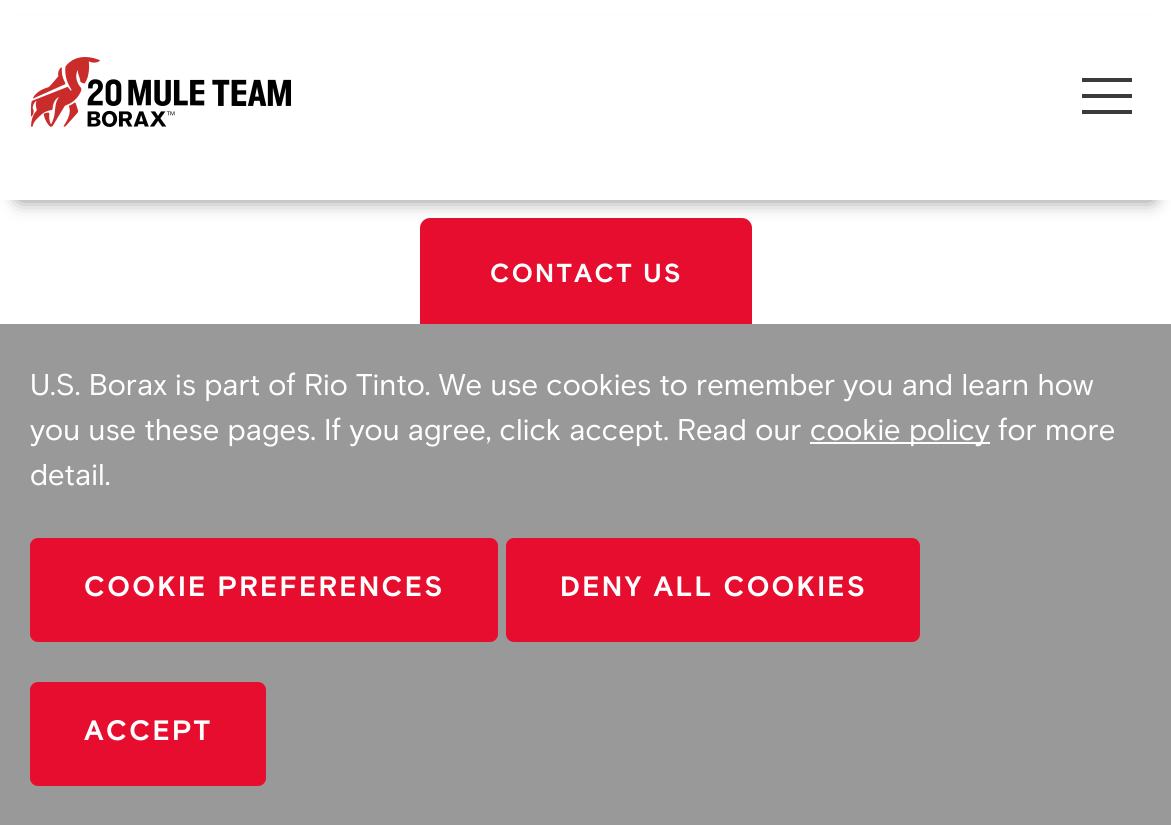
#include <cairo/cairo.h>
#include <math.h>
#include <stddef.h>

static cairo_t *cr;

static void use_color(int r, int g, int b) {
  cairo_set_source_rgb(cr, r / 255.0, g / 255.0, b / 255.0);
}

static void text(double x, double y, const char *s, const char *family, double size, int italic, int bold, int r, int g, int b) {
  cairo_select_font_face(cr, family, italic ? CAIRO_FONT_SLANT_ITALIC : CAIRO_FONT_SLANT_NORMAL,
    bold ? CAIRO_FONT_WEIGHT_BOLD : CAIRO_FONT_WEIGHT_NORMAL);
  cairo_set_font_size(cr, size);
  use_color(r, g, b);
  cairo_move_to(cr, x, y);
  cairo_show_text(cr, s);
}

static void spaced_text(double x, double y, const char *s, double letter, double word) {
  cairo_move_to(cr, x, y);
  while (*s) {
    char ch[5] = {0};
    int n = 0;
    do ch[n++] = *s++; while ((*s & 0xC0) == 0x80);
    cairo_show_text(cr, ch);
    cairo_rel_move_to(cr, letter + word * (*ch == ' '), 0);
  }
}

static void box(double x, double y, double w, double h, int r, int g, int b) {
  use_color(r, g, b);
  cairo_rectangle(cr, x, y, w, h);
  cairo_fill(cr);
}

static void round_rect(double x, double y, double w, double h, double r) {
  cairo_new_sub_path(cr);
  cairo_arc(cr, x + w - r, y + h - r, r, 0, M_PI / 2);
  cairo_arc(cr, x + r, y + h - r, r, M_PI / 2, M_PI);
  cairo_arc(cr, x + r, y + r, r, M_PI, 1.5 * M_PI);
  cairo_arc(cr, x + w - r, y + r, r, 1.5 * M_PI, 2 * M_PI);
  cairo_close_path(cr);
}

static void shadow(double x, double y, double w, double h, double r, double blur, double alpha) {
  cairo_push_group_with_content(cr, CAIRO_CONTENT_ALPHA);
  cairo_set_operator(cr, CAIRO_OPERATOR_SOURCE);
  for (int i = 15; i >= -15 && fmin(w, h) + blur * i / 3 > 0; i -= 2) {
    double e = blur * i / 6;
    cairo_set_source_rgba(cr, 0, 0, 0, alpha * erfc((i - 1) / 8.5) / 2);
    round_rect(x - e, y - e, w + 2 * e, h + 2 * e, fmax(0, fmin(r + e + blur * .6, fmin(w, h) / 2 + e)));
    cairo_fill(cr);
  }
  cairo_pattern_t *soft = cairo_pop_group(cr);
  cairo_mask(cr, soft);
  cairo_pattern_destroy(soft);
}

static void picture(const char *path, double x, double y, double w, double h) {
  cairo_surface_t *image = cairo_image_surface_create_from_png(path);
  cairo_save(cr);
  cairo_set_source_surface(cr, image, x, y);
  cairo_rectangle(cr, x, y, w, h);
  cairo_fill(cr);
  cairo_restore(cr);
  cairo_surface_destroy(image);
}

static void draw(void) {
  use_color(255, 255, 255);
  cairo_paint(cr);
  use_color(230, 13, 46);
  cairo_new_path(cr);
  cairo_move_to(cr, 430, 218);
  cairo_line_to(cr, 742, 218);
  cairo_curve_to(cr, 747.5, 218, 752, 222.5, 752, 228);
  cairo_line_to(cr, 752, 328);
  cairo_line_to(cr, 420, 328);
  cairo_line_to(cr, 420, 228);
  cairo_curve_to(cr, 420, 222.5, 424.5, 218, 430, 218);
  cairo_close_path(cr);
  cairo_fill(cr);
  use_color(105, 105, 105);
  shadow(20, 38, 1132, 160, 0, 10, 1);
  box(0, 17, 1171, 183, 255, 255, 255);
  picture("img_01.png", 30, 57, 262, 70);
  box(1082, 78, 50, 4, 59, 59, 59);
  box(1082, 94, 50, 4, 59, 59, 59);
  box(1082, 110, 50, 4, 59, 59, 59);
  box(0, 324, 1171, 501, 153, 153, 153);
  box(810, 442, 180, 2, 255, 255, 255);
  use_color(230, 13, 46);
  round_rect(31, 539, 466, 102, 7);
  cairo_fill_preserve(cr);
  cairo_stroke(cr);
  round_rect(507, 539, 412, 102, 7);
  cairo_fill_preserve(cr);
  cairo_stroke(cr);
  round_rect(31, 683, 234, 102, 7);
  cairo_fill_preserve(cr);
  cairo_stroke(cr);
  cairo_select_font_face(cr, "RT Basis", CAIRO_FONT_SLANT_NORMAL, CAIRO_FONT_WEIGHT_BOLD);
  cairo_set_font_size(cr, 26);
  use_color(255, 255, 255);
  spaced_text(490, 282, "CONTACT US", 2.25, 0);
  text(30, 395, "U.S. Borax is part of Rio Tinto. We use cookies to remember you and learn how", "RT Basis", 30, 0, 0, 255, 255, 255);
  text(30, 440, "you use these pages. If you agree, click accept. Read our", "RT Basis", 30, 0, 0, 255, 255, 255);
  text(810, 440, "cookie policy for more", "RT Basis", 30, 0, 0, 255, 255, 255);
  text(30, 485, "detail.", "RT Basis", 30, 0, 0, 255, 255, 255);
  cairo_select_font_face(cr, "RT Basis", CAIRO_FONT_SLANT_NORMAL, CAIRO_FONT_WEIGHT_BOLD);
  cairo_set_font_size(cr, 28);
  spaced_text(84, 596, "COOKIE PREFERENCES", 2.25, 0);
  spaced_text(560, 596, "DENY ALL COOKIES", 2.25, 0);
  spaced_text(84, 740, "ACCEPT", 2.25, 0);
}

int main(void) {
  cairo_surface_t *surface = cairo_image_surface_create(CAIRO_FORMAT_RGB24, 1171, 825);
  cr = cairo_create(surface);
  cairo_font_options_t *options = cairo_font_options_create();
  cairo_font_options_set_hint_metrics(options, CAIRO_HINT_METRICS_OFF);
  cairo_font_options_set_hint_style(options, CAIRO_HINT_STYLE_NONE);
  cairo_set_font_options(cr, options);
  cairo_set_miter_limit(cr, 4);
  draw();
  cairo_surface_write_to_png(surface, "out.png");
  cairo_font_options_destroy(options);
  cairo_destroy(cr);
  cairo_surface_destroy(surface);
  return 0;
}
